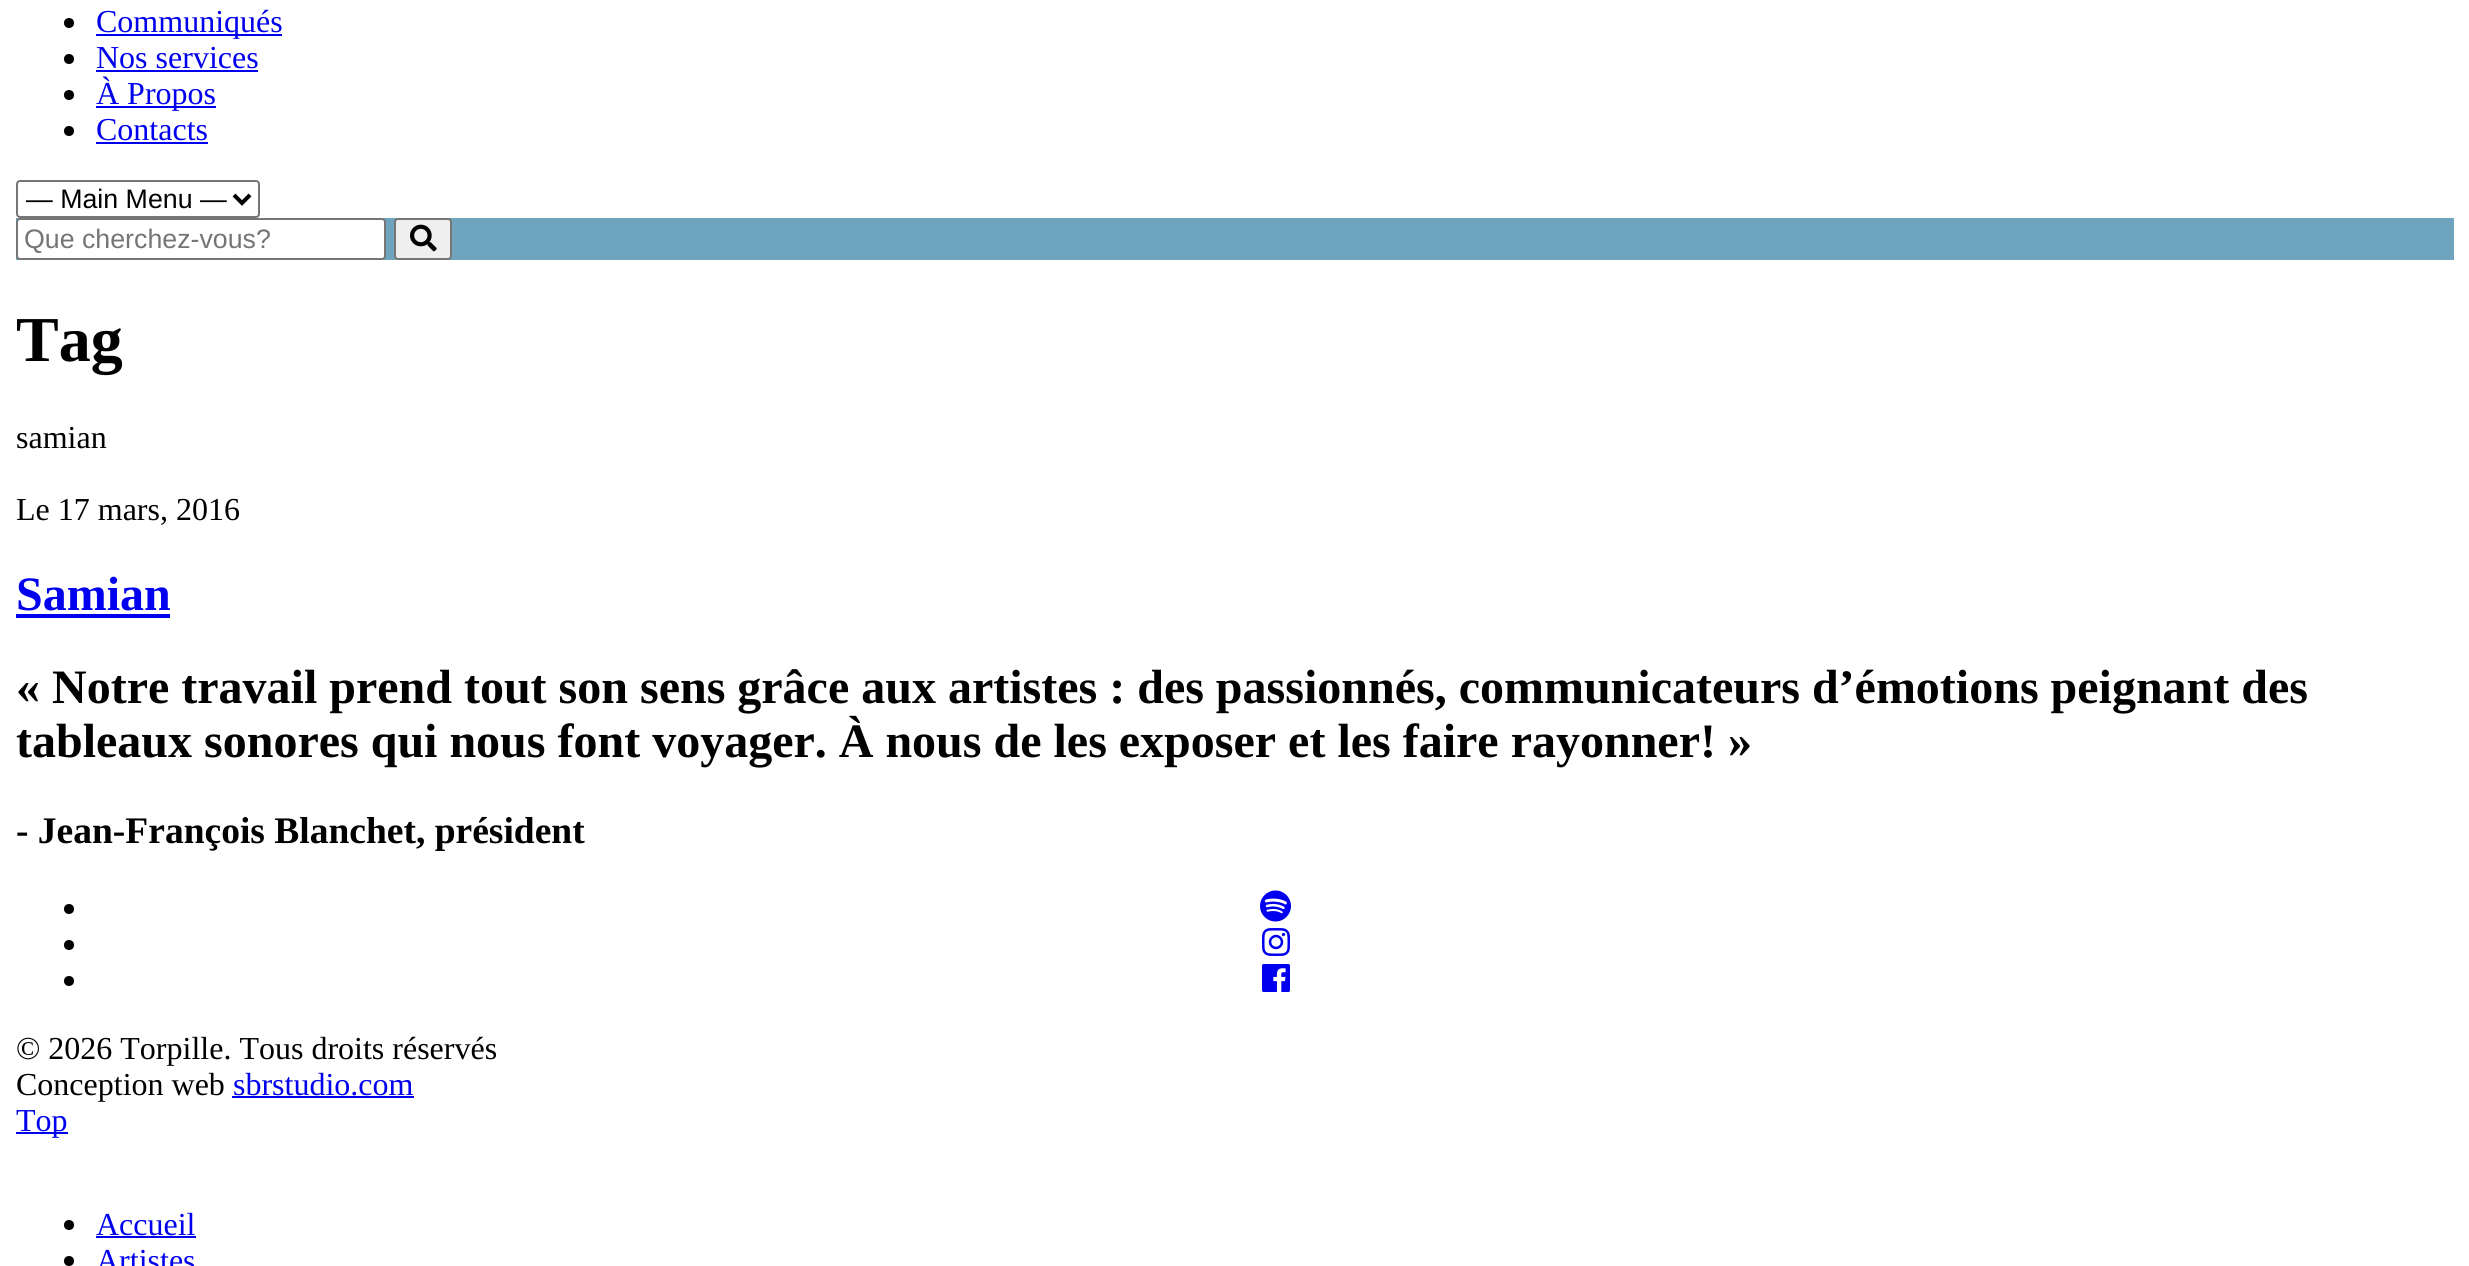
#include <cairo/cairo.h>
#include <math.h>
#include <stddef.h>

static cairo_t *cr;

static void use_color(int r, int g, int b) {
  cairo_set_source_rgb(cr, r / 255.0, g / 255.0, b / 255.0);
}

static void text(double x, double y, const char *s, const char *family, double size, int italic, int bold, int r, int g, int b) {
  cairo_select_font_face(cr, family, italic ? CAIRO_FONT_SLANT_ITALIC : CAIRO_FONT_SLANT_NORMAL,
    bold ? CAIRO_FONT_WEIGHT_BOLD : CAIRO_FONT_WEIGHT_NORMAL);
  cairo_set_font_size(cr, size);
  use_color(r, g, b);
  cairo_move_to(cr, x, y);
  cairo_show_text(cr, s);
}

static void box(double x, double y, double w, double h, int r, int g, int b) {
  use_color(r, g, b);
  cairo_rectangle(cr, x, y, w, h);
  cairo_fill(cr);
}

static void round_rect(double x, double y, double w, double h, double r) {
  cairo_new_sub_path(cr);
  cairo_arc(cr, x + w - r, y + h - r, r, 0, M_PI / 2);
  cairo_arc(cr, x + r, y + h - r, r, M_PI / 2, M_PI);
  cairo_arc(cr, x + r, y + r, r, M_PI, 1.5 * M_PI);
  cairo_arc(cr, x + w - r, y + r, r, 1.5 * M_PI, 2 * M_PI);
  cairo_close_path(cr);
}

static void picture(const char *path, double x, double y, double w, double h) {
  cairo_surface_t *image = cairo_image_surface_create_from_png(path);
  cairo_save(cr);
  cairo_set_source_surface(cr, image, x, y);
  cairo_rectangle(cr, x, y, w, h);
  cairo_fill(cr);
  cairo_restore(cr);
  cairo_surface_destroy(image);
}

static void draw(void) {
  use_color(255, 255, 255);
  cairo_paint(cr);
  use_color(0, 0, 0);
  cairo_arc(cr, 69, 23, 5, 0, 2 * M_PI);
  cairo_fill(cr);
  box(96, 34, 186, 2, 0, 0, 238);
  use_color(0, 0, 0);
  cairo_arc(cr, 69, 59, 5, 0, 2 * M_PI);
  cairo_fill(cr);
  box(96, 70, 162, 2, 0, 0, 238);
  use_color(0, 0, 0);
  cairo_arc(cr, 69, 95, 5, 0, 2 * M_PI);
  cairo_fill(cr);
  box(96, 106, 120, 2, 0, 0, 238);
  use_color(0, 0, 0);
  cairo_arc(cr, 69, 131, 5, 0, 2 * M_PI);
  cairo_fill(cr);
  box(96, 142, 112, 2, 0, 0, 238);
  round_rect(17, 181, 242, 36, 3);
  use_color(118, 118, 118);
  cairo_stroke(cr);
  cairo_new_path(cr);
  cairo_move_to(cr, 234, 195);
  cairo_line_to(cr, 242, 203);
  cairo_line_to(cr, 250, 195);
  use_color(0, 0, 0);
  cairo_set_line_width(cr, 4);
  cairo_stroke(cr);
  box(16, 218, 2438, 42, 110, 164, 190);
  use_color(255, 255, 255);
  round_rect(17, 219, 368, 40, 3);
  cairo_fill_preserve(cr);
  use_color(118, 118, 118);
  cairo_set_line_width(cr, 2);
  cairo_stroke(cr);
  use_color(239, 239, 239);
  round_rect(395, 219, 56, 40, 3);
  cairo_fill_preserve(cr);
  use_color(118, 118, 118);
  cairo_stroke(cr);
  picture("img_01.png", 410, 224, 27, 28);
  box(16, 614, 154, 4, 0, 0, 238);
  use_color(0, 0, 0);
  cairo_arc(cr, 69, 909, 5, 0, 2 * M_PI);
  cairo_fill(cr);
  picture("img_02.png", 1260, 890, 31, 32);
  cairo_arc(cr, 69, 945, 5, 0, 2 * M_PI);
  cairo_fill(cr);
  picture("img_03.png", 1262, 928, 28, 28);
  cairo_arc(cr, 69, 981, 5, 0, 2 * M_PI);
  cairo_fill(cr);
  picture("img_04.png", 1262, 964, 28, 28);
  box(232, 1096, 182, 2, 0, 0, 238);
  box(16, 1132, 52, 2, 0, 0, 238);
  use_color(0, 0, 0);
  cairo_arc(cr, 69, 1225, 5, 0, 2 * M_PI);
  cairo_fill(cr);
  box(96, 1236, 100, 2, 0, 0, 238);
  use_color(0, 0, 0);
  cairo_arc(cr, 69, 1261, 5, 0, 2 * M_PI);
  cairo_fill(cr);
  text(96, 32, "Communiqués", "Liberation Serif", 32, 0, 0, 0, 0, 238);
  text(96, 68, "Nos services", "Liberation Serif", 32, 0, 0, 0, 0, 238);
  text(96, 104, "À Propos", "Liberation Serif", 32, 0, 0, 0, 0, 238);
  text(96, 140, "Contacts", "Liberation Serif", 32, 0, 0, 0, 0, 238);
  text(26, 208, "— Main Menu —", "Liberation Sans", 26.75, 0, 0, 0, 0, 0);
  text(24, 248, "Que cherchez-vous?", "Liberation Sans", 26.75, 0, 0, 117, 117, 117);
  text(16, 361, "Tag", "Liberation Serif", 64, 0, 1, 0, 0, 0);
  text(16, 448, "samian", "Liberation Serif", 32, 0, 0, 0, 0, 0);
  text(16, 520, "Le 17 mars, 2016", "Liberation Serif", 32, 0, 0, 0, 0, 0);
  text(16, 610, "Samian", "Liberation Serif", 48, 0, 1, 0, 0, 238);
  text(16, 703, "« Notre travail prend tout son sens grâce aux artistes : des passionnés, communicateurs d’émotions peignant des", "Liberation Serif", 48, 0, 1, 0, 0, 0);
  text(16, 757, "tableaux sonores qui nous font voyager. À nous de les exposer et les faire rayonner! »", "Liberation Serif", 48, 0, 1, 0, 0, 0);
  text(16, 843, "- Jean-François Blanchet, président", "Liberation Serif", 37.5, 0, 1, 0, 0, 0);
  text(16, 1059, "© 2026 Torpille. Tous droits réservés", "Liberation Serif", 32, 0, 0, 0, 0, 0);
  text(16, 1095, "Conception web", "Liberation Serif", 32, 0, 0, 0, 0, 0);
  text(233, 1095, "sbrstudio.com", "Liberation Serif", 32, 0, 0, 0, 0, 238);
  text(16, 1131, "Top", "Liberation Serif", 32, 0, 0, 0, 0, 238);
  text(96, 1235, "Accueil", "Liberation Serif", 32, 0, 0, 0, 0, 238);
  text(96, 1271, "Artistes", "Liberation Serif", 32, 0, 0, 0, 0, 238);
}

int main(void) {
  cairo_surface_t *surface = cairo_image_surface_create(CAIRO_FORMAT_RGB24, 2469, 1266);
  cr = cairo_create(surface);
  cairo_font_options_t *options = cairo_font_options_create();
  cairo_font_options_set_hint_metrics(options, CAIRO_HINT_METRICS_OFF);
  cairo_font_options_set_hint_style(options, CAIRO_HINT_STYLE_NONE);
  cairo_set_font_options(cr, options);
  cairo_set_miter_limit(cr, 4);
  draw();
  cairo_surface_write_to_png(surface, "out.png");
  cairo_font_options_destroy(options);
  cairo_destroy(cr);
  cairo_surface_destroy(surface);
  return 0;
}
